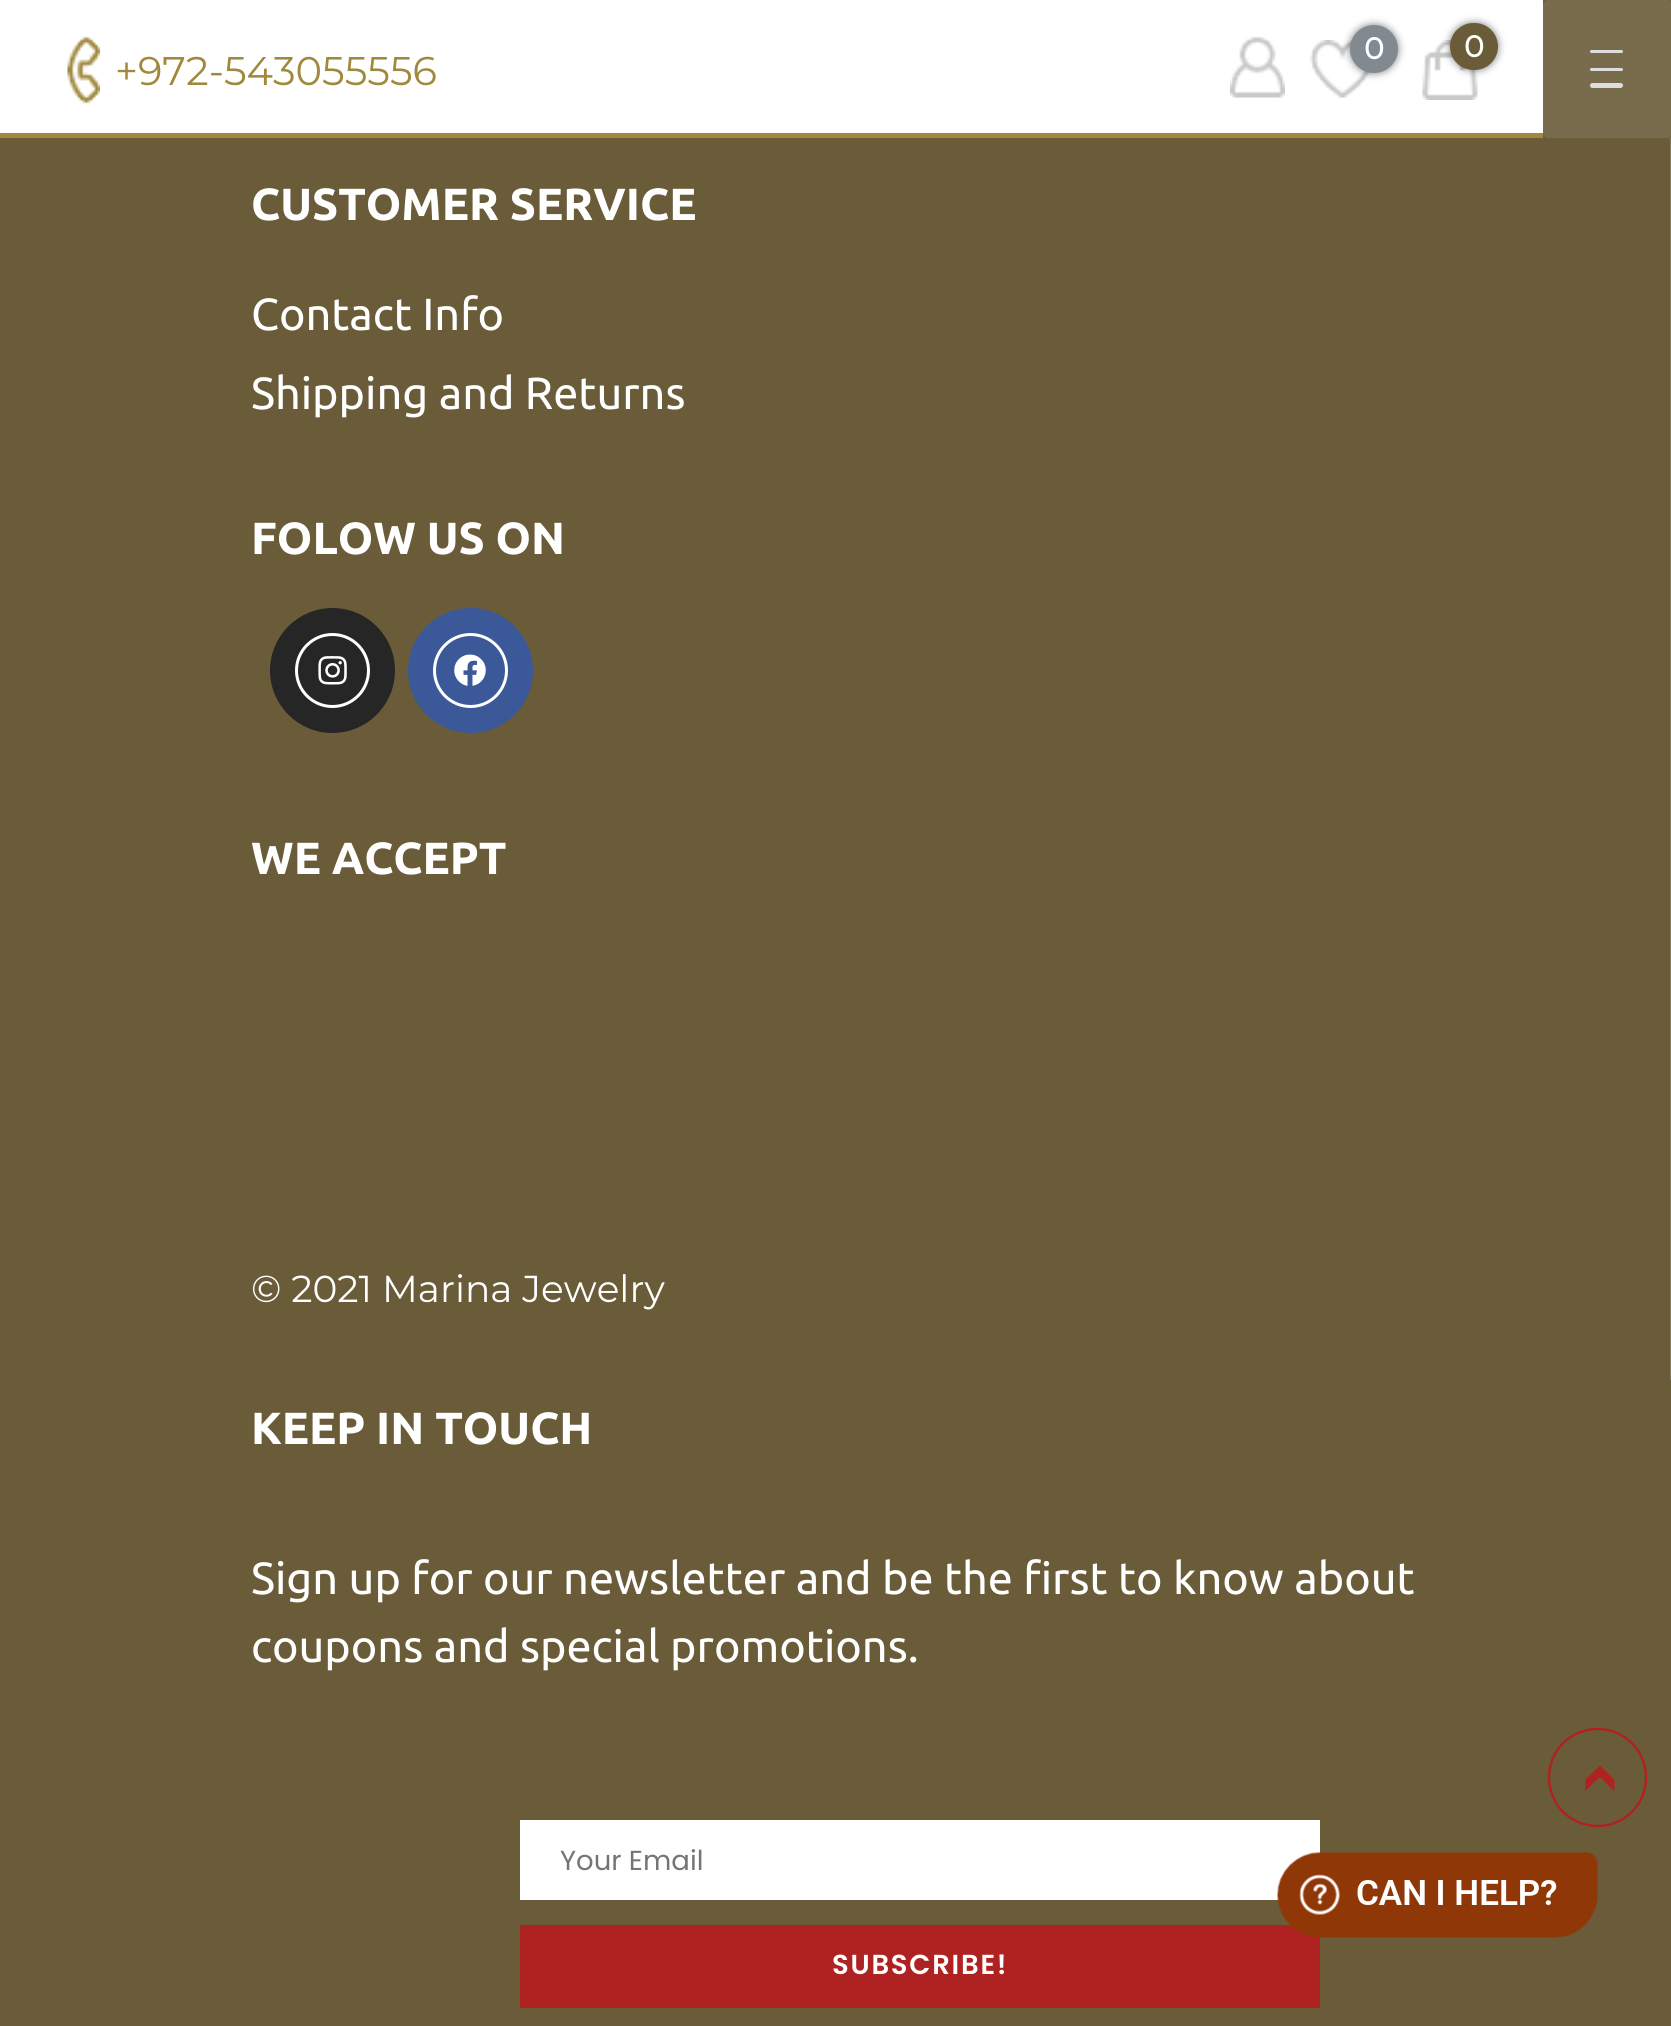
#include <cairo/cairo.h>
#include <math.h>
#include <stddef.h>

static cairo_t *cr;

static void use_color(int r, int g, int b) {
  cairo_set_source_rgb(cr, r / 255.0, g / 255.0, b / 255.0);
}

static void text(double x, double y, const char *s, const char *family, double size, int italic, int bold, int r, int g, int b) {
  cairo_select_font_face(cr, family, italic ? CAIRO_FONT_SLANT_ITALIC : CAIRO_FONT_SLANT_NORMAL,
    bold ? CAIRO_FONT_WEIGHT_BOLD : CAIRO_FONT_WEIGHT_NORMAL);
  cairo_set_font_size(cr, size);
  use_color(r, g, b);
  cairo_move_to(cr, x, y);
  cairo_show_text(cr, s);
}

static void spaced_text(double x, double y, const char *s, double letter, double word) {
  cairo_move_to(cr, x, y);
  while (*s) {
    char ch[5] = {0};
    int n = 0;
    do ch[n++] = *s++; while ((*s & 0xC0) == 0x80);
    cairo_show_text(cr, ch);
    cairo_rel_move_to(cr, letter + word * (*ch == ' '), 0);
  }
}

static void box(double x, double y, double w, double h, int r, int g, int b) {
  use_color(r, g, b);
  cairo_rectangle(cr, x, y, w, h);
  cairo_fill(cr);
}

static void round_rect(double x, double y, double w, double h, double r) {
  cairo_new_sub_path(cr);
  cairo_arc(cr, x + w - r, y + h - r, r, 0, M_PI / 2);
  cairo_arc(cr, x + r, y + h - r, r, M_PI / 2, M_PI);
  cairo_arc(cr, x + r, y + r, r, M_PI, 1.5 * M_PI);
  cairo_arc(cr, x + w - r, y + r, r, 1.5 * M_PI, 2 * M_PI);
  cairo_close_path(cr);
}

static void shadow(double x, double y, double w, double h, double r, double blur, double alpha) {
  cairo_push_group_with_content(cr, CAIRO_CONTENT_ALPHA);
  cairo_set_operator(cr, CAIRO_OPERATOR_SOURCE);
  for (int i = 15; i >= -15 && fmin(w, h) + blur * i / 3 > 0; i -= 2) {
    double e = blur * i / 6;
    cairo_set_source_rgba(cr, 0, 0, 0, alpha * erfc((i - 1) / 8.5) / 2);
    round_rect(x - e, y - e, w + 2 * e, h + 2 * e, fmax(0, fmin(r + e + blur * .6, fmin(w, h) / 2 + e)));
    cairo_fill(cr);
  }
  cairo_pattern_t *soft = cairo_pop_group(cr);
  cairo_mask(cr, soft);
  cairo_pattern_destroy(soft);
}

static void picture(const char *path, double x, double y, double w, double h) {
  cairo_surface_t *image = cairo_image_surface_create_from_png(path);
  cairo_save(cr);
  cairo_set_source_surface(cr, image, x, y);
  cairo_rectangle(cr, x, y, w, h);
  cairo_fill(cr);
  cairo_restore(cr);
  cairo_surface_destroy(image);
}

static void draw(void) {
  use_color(106, 92, 56);
  cairo_paint(cr);
  box(0, 0, 1543, 133, 255, 255, 255);
  box(0, 133, 1543, 5, 160, 137, 61);
  picture("img_01.png", 1230, 36, 55, 62);
  picture("img_02.png", 1310, 40, 64, 58);
  use_color(0, 0, 0);
  shadow(1350, 25, 48, 48, 24, 4, 0.5);
  use_color(129, 138, 145);
  cairo_arc(cr, 1374, 49, 24, 0, 2 * M_PI);
  cairo_fill(cr);
  picture("img_03.png", 1422, 40, 56, 60);
  use_color(0, 0, 0);
  shadow(1450, 23, 48, 47, 23.5, 4, 0.5);
  use_color(106, 92, 56);
  round_rect(1450, 23, 48, 47, 23.5);
  cairo_fill(cr);
  picture("img_04.png", 67, 36, 33, 68);
  use_color(121, 108, 76);
  round_rect(1543, 0, 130, 138, 5);
  cairo_fill(cr);
  use_color(221, 221, 221);
  round_rect(1590, 50, 33, 3, 1.5);
  cairo_fill(cr);
  round_rect(1590, 68, 33, 3, 1.5);
  cairo_fill(cr);
  round_rect(1590, 83, 33, 5, 2.5);
  cairo_fill(cr);
  box(1670, 138, 1, 1242, 132, 121, 93);
  use_color(38, 38, 38);
  cairo_arc(cr, 332.5, 670.5, 62.5, 0, 2 * M_PI);
  cairo_fill(cr);
  cairo_arc(cr, 332.5, 670.5, 36, 0, 2 * M_PI);
  use_color(255, 255, 255);
  cairo_set_line_width(cr, 3);
  cairo_stroke(cr);
  picture("img_05.png", 318, 656, 29, 29);
  use_color(59, 89, 152);
  cairo_arc(cr, 470.5, 670.5, 62.5, 0, 2 * M_PI);
  cairo_fill(cr);
  cairo_arc(cr, 470.5, 670.5, 36, 0, 2 * M_PI);
  use_color(255, 255, 255);
  cairo_stroke(cr);
  picture("img_06.png", 454, 654, 32, 32);
  box(520, 1820, 800, 80, 255, 255, 255);
  box(520, 1925, 800, 83, 175, 34, 34);
  cairo_new_path(cr);
  cairo_move_to(cr, 1549, 1777.5);
  cairo_curve_to(cr, 1549, 1750.5, 1570.5, 1729, 1597.5, 1729);
  cairo_curve_to(cr, 1624.5, 1729, 1646, 1750.5, 1646, 1777.5);
  cairo_curve_to(cr, 1646, 1804.5, 1624.5, 1826, 1597.5, 1826);
  cairo_curve_to(cr, 1570.5, 1826, 1549, 1804.5, 1549, 1777.5);
  cairo_close_path(cr);
  cairo_set_line_width(cr, 2.5);
  cairo_stroke(cr);
  picture("img_07.png", 1277, 1852, 321, 86);
  text(1364, 59, "0", "Montserrat", 30, 0, 1, 255, 255, 255);
  text(1464, 57, "0", "Montserrat", 30, 0, 1, 255, 255, 255);
  text(115, 85, "+972-543055556", "Montserrat Thin", 40, 0, 0, 160, 137, 61);
  text(251, 220, "CUSTOMER SERVICE", "Ubuntu", 45, 0, 1, 255, 255, 255);
  text(251, 330, "Contact Info", "Ubuntu", 45, 0, 0, 255, 255, 255);
  text(251, 409, "Shipping and Returns", "Ubuntu", 45, 0, 0, 255, 255, 255);
  text(251, 554, "FOLOW US ON", "Ubuntu", 45, 0, 1, 255, 255, 255);
  text(251, 874, "WE ACCEPT", "Ubuntu", 45, 0, 1, 255, 255, 255);
  text(251, 1302, "© 2021 Marina Jewelry", "Montserrat Thin", 37.5, 0, 0, 255, 255, 255);
  text(251, 1444, "KEEP IN TOUCH", "Ubuntu", 45, 0, 1, 255, 255, 255);
  text(251, 1594, "Sign up for our newsletter and be the first to know about", "Ubuntu", 45, 0, 0, 255, 255, 255);
  text(251, 1662, "coupons and special promotions.", "Ubuntu", 45, 0, 0, 255, 255, 255);
  text(560, 1870, "Your Email", "Poppins", 27.5, 0, 0, 117, 117, 117);
  cairo_select_font_face(cr, "Poppins SemiBold", CAIRO_FONT_SLANT_NORMAL, CAIRO_FONT_WEIGHT_NORMAL);
  use_color(255, 255, 255);
  spaced_text(832, 1974, "SUBSCRIBE!", 1.75, 0);
  cairo_set_font_size(cr, 65);
  use_color(175, 34, 34);
  cairo_save(cr);
  cairo_translate(cr, 1623, 1797);
  cairo_rotate(cr, -90 * M_PI / 180);
  spaced_text(0, 0, ">", 1.75, 0);
  cairo_restore(cr);
}

int main(void) {
  cairo_surface_t *surface = cairo_image_surface_create(CAIRO_FORMAT_RGB24, 1671, 2026);
  cr = cairo_create(surface);
  cairo_font_options_t *options = cairo_font_options_create();
  cairo_font_options_set_hint_metrics(options, CAIRO_HINT_METRICS_OFF);
  cairo_font_options_set_hint_style(options, CAIRO_HINT_STYLE_NONE);
  cairo_set_font_options(cr, options);
  cairo_set_miter_limit(cr, 4);
  draw();
  cairo_surface_write_to_png(surface, "out.png");
  cairo_font_options_destroy(options);
  cairo_destroy(cr);
  cairo_surface_destroy(surface);
  return 0;
}
